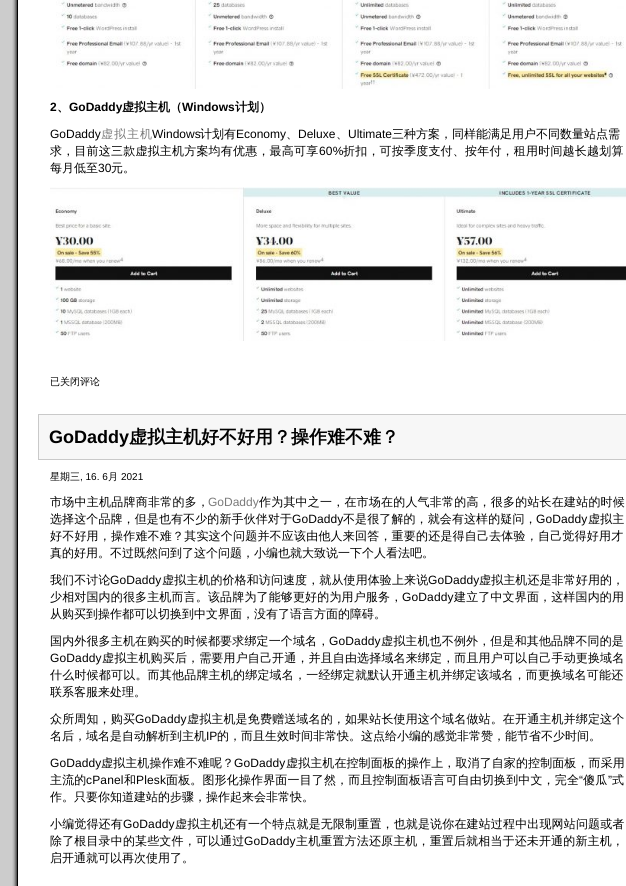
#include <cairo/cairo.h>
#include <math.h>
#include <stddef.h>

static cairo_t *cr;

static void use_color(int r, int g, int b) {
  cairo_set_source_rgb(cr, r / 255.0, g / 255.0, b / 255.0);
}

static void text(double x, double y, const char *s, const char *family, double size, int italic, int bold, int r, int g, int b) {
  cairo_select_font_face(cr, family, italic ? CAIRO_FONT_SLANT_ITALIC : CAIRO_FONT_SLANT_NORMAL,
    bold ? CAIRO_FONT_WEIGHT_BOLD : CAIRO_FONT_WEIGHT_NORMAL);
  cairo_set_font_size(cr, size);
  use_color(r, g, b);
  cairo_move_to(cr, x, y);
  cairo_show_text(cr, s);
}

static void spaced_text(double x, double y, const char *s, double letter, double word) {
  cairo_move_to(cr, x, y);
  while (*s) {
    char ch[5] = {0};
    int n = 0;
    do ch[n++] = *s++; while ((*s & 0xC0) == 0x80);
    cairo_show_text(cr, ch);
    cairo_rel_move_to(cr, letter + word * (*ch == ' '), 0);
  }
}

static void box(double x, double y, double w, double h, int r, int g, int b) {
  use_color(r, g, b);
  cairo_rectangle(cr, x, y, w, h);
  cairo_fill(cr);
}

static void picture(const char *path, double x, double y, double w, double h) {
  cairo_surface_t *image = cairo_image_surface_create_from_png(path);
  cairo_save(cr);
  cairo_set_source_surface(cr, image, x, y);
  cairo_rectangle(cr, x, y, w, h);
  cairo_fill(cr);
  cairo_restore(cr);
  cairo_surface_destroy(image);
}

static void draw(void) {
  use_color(204, 204, 204);
  cairo_paint(cr);
  picture("img_01.png", 12, 0, 5, 886);
  box(17, 0, 1, 886, 0, 0, 0);
  box(18, 0, 608, 886, 255, 255, 255);
  picture("img_02.png", 56, 0, 568, 89);
  picture("img_03.png", 50, 187, 576, 154);
  use_color(247, 247, 247);
  cairo_rectangle(cr, 38.5, 414.5, 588, 45);
  cairo_fill_preserve(cr);
  use_color(201, 201, 201);
  cairo_set_line_width(cr, 1);
  cairo_stroke(cr);
  text(50, 111, "2", "Liberation Sans", 12, 0, 1, 0, 0, 0);
  text(57, 111, "、", "WenQuanYi Zen Hei", 12, 0, 1, 0, 0, 0);
  text(69, 111, "GoDaddy", "Liberation Sans", 12, 0, 1, 0, 0, 0);
  text(122, 111, "虚拟主机（", "WenQuanYi Zen Hei", 12, 0, 1, 0, 0, 0);
  text(182, 111, "Windows", "Liberation Sans", 12, 0, 1, 0, 0, 0);
  text(235, 111, "计划）", "WenQuanYi Zen Hei", 12, 0, 1, 0, 0, 0);
  text(50, 138, "GoDaddy", "Liberation Sans", 12, 0, 0, 0, 0, 0);
  cairo_select_font_face(cr, "WenQuanYi Zen Hei Medium", CAIRO_FONT_SLANT_NORMAL, CAIRO_FONT_WEIGHT_NORMAL);
  use_color(122, 122, 122);
  spaced_text(101, 138, "虚拟主机", 1, 0);
  text(152, 138, "Windows", "Liberation Sans", 12, 0, 0, 0, 0, 0);
  text(200, 138, "计划有", "WenQuanYi Zen Hei Medium", 12, 0, 0, 0, 0, 0);
  text(236, 138, "Economy", "Liberation Sans", 12, 0, 0, 0, 0, 0);
  text(286, 138, "、", "WenQuanYi Zen Hei Medium", 12, 0, 0, 0, 0, 0);
  text(298, 138, "Deluxe", "Liberation Sans", 12, 0, 0, 0, 0, 0);
  text(336, 138, "、", "WenQuanYi Zen Hei Medium", 12, 0, 0, 0, 0, 0);
  text(348, 138, "Ultimate", "Liberation Sans", 12, 0, 0, 0, 0, 0);
  text(392, 138, "三种方案，同样能满足用户不同数量站点需", "WenQuanYi Zen Hei Medium", 12, 0, 0, 0, 0, 0);
  spaced_text(50, 155, "求，目前这三款虚拟主机方案均有优惠，最高可享", 0.2, 0);
  cairo_select_font_face(cr, "Liberation Sans", CAIRO_FONT_SLANT_NORMAL, CAIRO_FONT_WEIGHT_NORMAL);
  spaced_text(319, 155, "60%", 0.2, 0);
  cairo_select_font_face(cr, "WenQuanYi Zen Hei Medium", CAIRO_FONT_SLANT_NORMAL, CAIRO_FONT_WEIGHT_NORMAL);
  spaced_text(343, 155, "折扣，可按季度支付、按年付，租用时间越长越划算", 0.2, 0);
  text(50, 172, "每月低至", "WenQuanYi Zen Hei Medium", 12, 0, 0, 0, 0, 0);
  text(98, 172, "30", "Liberation Sans", 12, 0, 0, 0, 0, 0);
  text(111, 172, "元。", "WenQuanYi Zen Hei Medium", 12, 0, 0, 0, 0, 0);
  text(50, 385, "已关闭评论", "WenQuanYi Zen Hei Medium", 10, 0, 0, 0, 0, 0);
  text(49, 443, "GoDaddy", "Liberation Sans", 18, 0, 1, 0, 0, 0);
  text(129, 443, "虚拟主机好不好用？操作难不难？", "WenQuanYi Zen Hei", 18, 0, 1, 0, 0, 0);
  text(50, 480, "星期三", "WenQuanYi Zen Hei Medium", 10, 0, 0, 0, 0, 0);
  text(80, 480, ", 16. 6", "Liberation Sans", 10, 0, 0, 0, 0, 0);
  text(108, 480, "月", "WenQuanYi Zen Hei Medium", 10, 0, 0, 0, 0, 0);
  text(121, 480, "2021", "Liberation Sans", 10, 0, 0, 0, 0, 0);
  cairo_select_font_face(cr, "WenQuanYi Zen Hei Medium", CAIRO_FONT_SLANT_NORMAL, CAIRO_FONT_WEIGHT_NORMAL);
  cairo_set_font_size(cr, 12);
  spaced_text(50, 506, "市场中主机品牌商非常的多，", 0.25, 0);
  text(208, 506, "GoDaddy", "Liberation Sans", 12, 0, 0, 122, 122, 122);
  cairo_select_font_face(cr, "WenQuanYi Zen Hei Medium", CAIRO_FONT_SLANT_NORMAL, CAIRO_FONT_WEIGHT_NORMAL);
  use_color(0, 0, 0);
  spaced_text(259, 506, "作为其中之一，在市场在的人气非常的高，很多的站长在建站的时候", 0.2, 0);
  spaced_text(50, 523, "选择这个品牌，但是也有不少的新手伙伴对于", 0.1, 0);
  cairo_select_font_face(cr, "Liberation Sans", CAIRO_FONT_SLANT_NORMAL, CAIRO_FONT_WEIGHT_NORMAL);
  spaced_text(292, 523, "GoDaddy", 0.1, 0);
  cairo_select_font_face(cr, "WenQuanYi Zen Hei Medium", CAIRO_FONT_SLANT_NORMAL, CAIRO_FONT_WEIGHT_NORMAL);
  spaced_text(343, 523, "不是很了解的，就会有这样的疑问，", 0.1, 0);
  cairo_select_font_face(cr, "Liberation Sans", CAIRO_FONT_SLANT_NORMAL, CAIRO_FONT_WEIGHT_NORMAL);
  spaced_text(536, 523, "GoDaddy", 0.1, 0);
  cairo_select_font_face(cr, "WenQuanYi Zen Hei Medium", CAIRO_FONT_SLANT_NORMAL, CAIRO_FONT_WEIGHT_NORMAL);
  spaced_text(588, 523, "虚拟主", 0.1, 0);
  spaced_text(50, 540, "好不好用，操作难不难？其实这个问题并不应该由他人来回答，重要的还是得自己去体验，自己觉得好用才", 0.2, 0);
  text(50, 557, "真的好用。不过既然问到了这个问题，小编也就大致说一下个人看法吧。", "WenQuanYi Zen Hei Medium", 12, 0, 0, 0, 0, 0);
  spaced_text(50, 584, "我们不讨论", 0.1, 0);
  cairo_select_font_face(cr, "Liberation Sans", CAIRO_FONT_SLANT_NORMAL, CAIRO_FONT_WEIGHT_NORMAL);
  spaced_text(110, 584, "GoDaddy", 0.1, 0);
  cairo_select_font_face(cr, "WenQuanYi Zen Hei Medium", CAIRO_FONT_SLANT_NORMAL, CAIRO_FONT_WEIGHT_NORMAL);
  spaced_text(162, 584, "虚拟主机的价格和访问速度，就从使用体验上来说", 0.1, 0);
  cairo_select_font_face(cr, "Liberation Sans", CAIRO_FONT_SLANT_NORMAL, CAIRO_FONT_WEIGHT_NORMAL);
  spaced_text(428, 584, "GoDaddy", 0.1, 0);
  cairo_select_font_face(cr, "WenQuanYi Zen Hei Medium", CAIRO_FONT_SLANT_NORMAL, CAIRO_FONT_WEIGHT_NORMAL);
  spaced_text(479, 584, "虚拟主机还是非常好用的，", 0.1, 0);
  spaced_text(50, 601, "少相对国内的很多主机而言。该品牌为了能够更好的为用户服务，", 0.15, 0);
  cairo_select_font_face(cr, "Liberation Sans", CAIRO_FONT_SLANT_NORMAL, CAIRO_FONT_WEIGHT_NORMAL);
  spaced_text(402, 601, "GoDaddy", 0.15, 0);
  cairo_select_font_face(cr, "WenQuanYi Zen Hei Medium", CAIRO_FONT_SLANT_NORMAL, CAIRO_FONT_WEIGHT_NORMAL);
  spaced_text(454, 601, "建立了中文界面，这样国内的用", 0.15, 0);
  text(50, 618, "从购买到操作都可以切换到中文界面，没有了语言方面的障碍。", "WenQuanYi Zen Hei Medium", 12, 0, 0, 0, 0, 0);
  spaced_text(50, 645, "国内外很多主机在购买的时候都要求绑定一个域名，", 0.15, 0);
  cairo_select_font_face(cr, "Liberation Sans", CAIRO_FONT_SLANT_NORMAL, CAIRO_FONT_WEIGHT_NORMAL);
  spaced_text(329, 645, "GoDaddy", 0.15, 0);
  cairo_select_font_face(cr, "WenQuanYi Zen Hei Medium", CAIRO_FONT_SLANT_NORMAL, CAIRO_FONT_WEIGHT_NORMAL);
  spaced_text(381, 645, "虚拟主机也不例外，但是和其他品牌不同的是", 0.15, 0);
  cairo_select_font_face(cr, "Liberation Sans", CAIRO_FONT_SLANT_NORMAL, CAIRO_FONT_WEIGHT_NORMAL);
  spaced_text(50, 662, "GoDaddy", 0.15, 0);
  cairo_select_font_face(cr, "WenQuanYi Zen Hei Medium", CAIRO_FONT_SLANT_NORMAL, CAIRO_FONT_WEIGHT_NORMAL);
  spaced_text(102, 662, "虚拟主机购买后，需要用户自己开通，并且自由选择域名来绑定，而且用户可以自己手动更换域名", 0.15, 0);
  spaced_text(50, 679, "什么时候都可以。而其他品牌主机的绑定域名，一经绑定就默认开通主机并绑定该域名，而更换域名可能还", 0.2, 0);
  text(50, 696, "联系客服来处理。", "WenQuanYi Zen Hei Medium", 12, 0, 0, 0, 0, 0);
  spaced_text(50, 723, "众所周知，购买", 0.15, 0);
  cairo_select_font_face(cr, "Liberation Sans", CAIRO_FONT_SLANT_NORMAL, CAIRO_FONT_WEIGHT_NORMAL);
  spaced_text(135, 723, "GoDaddy", 0.15, 0);
  cairo_select_font_face(cr, "WenQuanYi Zen Hei Medium", CAIRO_FONT_SLANT_NORMAL, CAIRO_FONT_WEIGHT_NORMAL);
  spaced_text(187, 723, "虚拟主机是免费赠送域名的，如果站长使用这个域名做站。在开通主机并绑定这个", 0.15, 0);
  text(50, 740, "名后，域名是自动解析到主机", "WenQuanYi Zen Hei Medium", 12, 0, 0, 0, 0, 0);
  text(206, 740, "IP", "Liberation Sans", 12, 0, 0, 0, 0, 0);
  text(217, 740, "的，而且生效时间非常快。这点给小编的感觉非常赞，能节省不少时间。", "WenQuanYi Zen Hei Medium", 12, 0, 0, 0, 0, 0);
  cairo_select_font_face(cr, "Liberation Sans", CAIRO_FONT_SLANT_NORMAL, CAIRO_FONT_WEIGHT_NORMAL);
  spaced_text(50, 767, "GoDaddy", 0.1, 0);
  cairo_select_font_face(cr, "WenQuanYi Zen Hei Medium", CAIRO_FONT_SLANT_NORMAL, CAIRO_FONT_WEIGHT_NORMAL);
  spaced_text(101, 767, "虚拟主机操作难不难呢？", 0.1, 0);
  cairo_select_font_face(cr, "Liberation Sans", CAIRO_FONT_SLANT_NORMAL, CAIRO_FONT_WEIGHT_NORMAL);
  spaced_text(234, 767, "GoDaddy", 0.1, 0);
  cairo_select_font_face(cr, "WenQuanYi Zen Hei Medium", CAIRO_FONT_SLANT_NORMAL, CAIRO_FONT_WEIGHT_NORMAL);
  spaced_text(286, 767, "虚拟主机在控制面板的操作上，取消了自家的控制面板，而采用", 0.1, 0);
  spaced_text(50, 784, "主流的", 0.15, 0);
  cairo_select_font_face(cr, "Liberation Sans", CAIRO_FONT_SLANT_NORMAL, CAIRO_FONT_WEIGHT_NORMAL);
  spaced_text(86, 784, "cPanel", 0.15, 0);
  cairo_select_font_face(cr, "WenQuanYi Zen Hei Medium", CAIRO_FONT_SLANT_NORMAL, CAIRO_FONT_WEIGHT_NORMAL);
  spaced_text(124, 784, "和", 0.15, 0);
  cairo_select_font_face(cr, "Liberation Sans", CAIRO_FONT_SLANT_NORMAL, CAIRO_FONT_WEIGHT_NORMAL);
  spaced_text(136, 784, "Plesk", 0.15, 0);
  cairo_select_font_face(cr, "WenQuanYi Zen Hei Medium", CAIRO_FONT_SLANT_NORMAL, CAIRO_FONT_WEIGHT_NORMAL);
  spaced_text(166, 784, "面板。图形化操作界面一目了然，而且控制面板语言可自由切换到中文，完全", 0.15, 0);
  cairo_select_font_face(cr, "Liberation Sans", CAIRO_FONT_SLANT_NORMAL, CAIRO_FONT_WEIGHT_NORMAL);
  spaced_text(579, 784, "“", 0.15, 0);
  cairo_select_font_face(cr, "WenQuanYi Zen Hei Medium", CAIRO_FONT_SLANT_NORMAL, CAIRO_FONT_WEIGHT_NORMAL);
  spaced_text(583, 784, "傻瓜", 0.15, 0);
  cairo_select_font_face(cr, "Liberation Sans", CAIRO_FONT_SLANT_NORMAL, CAIRO_FONT_WEIGHT_NORMAL);
  spaced_text(608, 784, "”", 0.15, 0);
  cairo_select_font_face(cr, "WenQuanYi Zen Hei Medium", CAIRO_FONT_SLANT_NORMAL, CAIRO_FONT_WEIGHT_NORMAL);
  spaced_text(612, 784, "式", 0.15, 0);
  text(50, 801, "作。只要你知道建站的步骤，操作起来会非常快。", "WenQuanYi Zen Hei Medium", 12, 0, 0, 0, 0, 0);
  spaced_text(50, 828, "小编觉得还有", 0.15, 0);
  cairo_select_font_face(cr, "Liberation Sans", CAIRO_FONT_SLANT_NORMAL, CAIRO_FONT_WEIGHT_NORMAL);
  spaced_text(123, 828, "GoDaddy", 0.15, 0);
  cairo_select_font_face(cr, "WenQuanYi Zen Hei Medium", CAIRO_FONT_SLANT_NORMAL, CAIRO_FONT_WEIGHT_NORMAL);
  spaced_text(175, 828, "虚拟主机还有一个特点就是无限制重置，也就是说你在建站过程中出现网站问题或者", 0.15, 0);
  spaced_text(50, 845, "除了根目录中的某些文件，可以通过", 0.15, 0);
  cairo_select_font_face(cr, "Liberation Sans", CAIRO_FONT_SLANT_NORMAL, CAIRO_FONT_WEIGHT_NORMAL);
  spaced_text(244, 845, "GoDaddy", 0.15, 0);
  cairo_select_font_face(cr, "WenQuanYi Zen Hei Medium", CAIRO_FONT_SLANT_NORMAL, CAIRO_FONT_WEIGHT_NORMAL);
  spaced_text(296, 845, "主机重置方法还原主机，重置后就相当于还未开通的新主机，", 0.15, 0);
  text(50, 862, "启开通就可以再次使用了。", "WenQuanYi Zen Hei Medium", 12, 0, 0, 0, 0, 0);
}

int main(void) {
  cairo_surface_t *surface = cairo_image_surface_create(CAIRO_FORMAT_RGB24, 626, 886);
  cr = cairo_create(surface);
  cairo_font_options_t *options = cairo_font_options_create();
  cairo_font_options_set_hint_metrics(options, CAIRO_HINT_METRICS_OFF);
  cairo_font_options_set_hint_style(options, CAIRO_HINT_STYLE_NONE);
  cairo_set_font_options(cr, options);
  cairo_set_miter_limit(cr, 4);
  draw();
  cairo_surface_write_to_png(surface, "out.png");
  cairo_font_options_destroy(options);
  cairo_destroy(cr);
  cairo_surface_destroy(surface);
  return 0;
}
